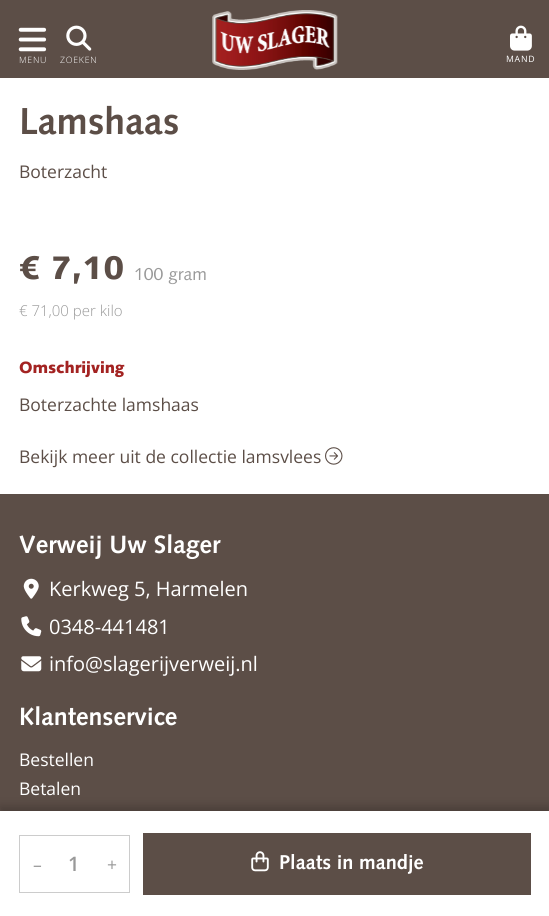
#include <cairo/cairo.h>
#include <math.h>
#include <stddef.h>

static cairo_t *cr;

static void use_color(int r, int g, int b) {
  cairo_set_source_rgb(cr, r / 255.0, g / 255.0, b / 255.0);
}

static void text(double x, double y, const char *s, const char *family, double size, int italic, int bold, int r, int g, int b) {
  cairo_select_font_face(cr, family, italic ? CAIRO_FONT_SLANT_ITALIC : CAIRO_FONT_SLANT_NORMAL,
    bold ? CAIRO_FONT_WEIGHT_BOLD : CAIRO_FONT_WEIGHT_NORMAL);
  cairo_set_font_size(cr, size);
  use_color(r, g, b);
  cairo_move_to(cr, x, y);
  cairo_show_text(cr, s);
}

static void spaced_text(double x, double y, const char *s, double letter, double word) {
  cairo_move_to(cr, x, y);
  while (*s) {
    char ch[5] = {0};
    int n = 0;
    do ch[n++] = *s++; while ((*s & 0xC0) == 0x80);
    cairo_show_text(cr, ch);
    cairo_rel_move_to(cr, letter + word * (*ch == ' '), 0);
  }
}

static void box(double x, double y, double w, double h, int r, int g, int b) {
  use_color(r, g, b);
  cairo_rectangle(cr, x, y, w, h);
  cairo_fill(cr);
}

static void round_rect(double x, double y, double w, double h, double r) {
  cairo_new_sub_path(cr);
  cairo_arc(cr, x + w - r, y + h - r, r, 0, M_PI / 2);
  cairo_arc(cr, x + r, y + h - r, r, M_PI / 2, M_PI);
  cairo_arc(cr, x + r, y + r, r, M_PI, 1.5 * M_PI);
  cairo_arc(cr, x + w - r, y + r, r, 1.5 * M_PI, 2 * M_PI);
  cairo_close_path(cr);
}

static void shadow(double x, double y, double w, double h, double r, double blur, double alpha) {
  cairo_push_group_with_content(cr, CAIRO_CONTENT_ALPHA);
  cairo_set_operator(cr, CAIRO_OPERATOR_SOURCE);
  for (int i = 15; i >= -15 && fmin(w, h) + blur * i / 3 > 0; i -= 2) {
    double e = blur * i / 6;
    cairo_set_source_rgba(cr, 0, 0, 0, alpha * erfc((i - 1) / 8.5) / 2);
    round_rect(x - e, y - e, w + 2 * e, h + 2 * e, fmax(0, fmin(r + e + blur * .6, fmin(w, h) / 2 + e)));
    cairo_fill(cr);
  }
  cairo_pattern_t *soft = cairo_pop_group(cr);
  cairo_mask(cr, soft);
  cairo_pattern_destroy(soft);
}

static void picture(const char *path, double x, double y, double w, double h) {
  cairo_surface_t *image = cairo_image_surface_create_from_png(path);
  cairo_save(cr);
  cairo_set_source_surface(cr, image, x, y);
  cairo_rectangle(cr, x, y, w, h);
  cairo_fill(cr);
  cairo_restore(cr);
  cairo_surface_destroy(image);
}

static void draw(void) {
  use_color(255, 255, 255);
  cairo_paint(cr);
  box(0, 0, 549, 78, 92, 78, 71);
  picture("img_01.png", 18, 27, 29, 25);
  picture("img_02.png", 66, 25, 26, 26);
  picture("img_03.png", 212, 10, 126, 60);
  picture("img_04.png", 510, 25, 22, 26);
  box(0, 494, 549, 317, 92, 78, 71);
  use_color(0, 0, 0);
  shadow(0, 806, 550, 105, 0, 5, 0.2);
  box(0, 811, 549, 105, 255, 255, 255);
  cairo_rectangle(cr, 19.5, 835.5, 110, 57);
  use_color(204, 204, 204);
  cairo_set_line_width(cr, 1);
  cairo_stroke(cr);
  box(143, 833, 388, 62, 92, 78, 71);
  picture("img_05.png", 251, 851, 18, 21);
  picture("img_06.png", 325, 447, 18, 18);
  picture("img_07.png", 23, 578, 16, 21);
  picture("img_08.png", 21, 616, 21, 21);
  picture("img_09.png", 21, 656, 21, 16);
  cairo_select_font_face(cr, "Open Sans Light", CAIRO_FONT_SLANT_NORMAL, CAIRO_FONT_WEIGHT_NORMAL);
  cairo_set_font_size(cr, 8.75);
  use_color(255, 255, 255);
  spaced_text(19, 63, "MENU", 0.75, 0);
  spaced_text(60, 63, "ZOEKEN", 0.75, 0);
  cairo_select_font_face(cr, "Open Sans", CAIRO_FONT_SLANT_NORMAL, CAIRO_FONT_WEIGHT_NORMAL);
  spaced_text(506, 62, "MAND", 0.75, 0);
  text(19, 134, "Lamshaas", "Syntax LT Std", 37.5, 0, 1, 92, 78, 71);
  text(19, 178, "Boterzacht", "Open Sans", 17.5, 0, 0, 92, 78, 71);
  text(19, 279, "€ 7,10", "Syntax LT Std Black", 32.5, 0, 0, 92, 78, 71);
  text(134, 280, "100 gram", "Syntax LT Std", 17.5, 0, 0, 153, 153, 153);
  text(19, 316, "€ 71,00 per kilo", "Open Sans Light", 15, 0, 0, 153, 153, 153);
  text(33, 871, "–", "Open Sans", 17.5, 0, 0, 153, 153, 153);
  text(68, 871, "1", "Open Sans SemiBold", 20, 0, 0, 153, 153, 153);
  text(107, 871, "+", "Open Sans", 17.5, 0, 0, 153, 153, 153);
  text(279, 869, "Plaats in mandje", "Syntax LT Std", 20, 0, 1, 255, 255, 255);
  text(19, 463, "Bekijk meer uit de collectie lamsvlees", "Open Sans", 17.5, 0, 0, 92, 78, 71);
  text(19, 373, "Omschrijving", "Syntax LT Std Black", 16.25, 0, 0, 163, 35, 34);
  text(19, 411, "Boterzachte lamshaas", "Open Sans", 17.5, 0, 0, 92, 78, 71);
  text(19, 553, "Verweij Uw Slager", "Syntax LT Std", 25, 0, 1, 255, 255, 255);
  text(49, 596, "Kerkweg 5, Harmelen", "Open Sans", 20, 0, 0, 255, 255, 255);
  text(49, 634, "0348-441481", "Open Sans", 20, 0, 0, 255, 255, 255);
  text(49, 671, "info@slagerijverweij.nl", "Open Sans", 20, 0, 0, 255, 255, 255);
  text(19, 725, "Klantenservice", "Syntax LT Std", 25, 0, 1, 255, 255, 255);
  text(19, 766, "Bestellen", "Open Sans", 17.5, 0, 0, 255, 255, 255);
  text(19, 795, "Betalen", "Open Sans", 17.5, 0, 0, 255, 255, 255);
}

int main(void) {
  cairo_surface_t *surface = cairo_image_surface_create(CAIRO_FORMAT_RGB24, 549, 916);
  cr = cairo_create(surface);
  cairo_font_options_t *options = cairo_font_options_create();
  cairo_font_options_set_hint_metrics(options, CAIRO_HINT_METRICS_OFF);
  cairo_font_options_set_hint_style(options, CAIRO_HINT_STYLE_NONE);
  cairo_set_font_options(cr, options);
  cairo_set_miter_limit(cr, 4);
  draw();
  cairo_surface_write_to_png(surface, "out.png");
  cairo_font_options_destroy(options);
  cairo_destroy(cr);
  cairo_surface_destroy(surface);
  return 0;
}
